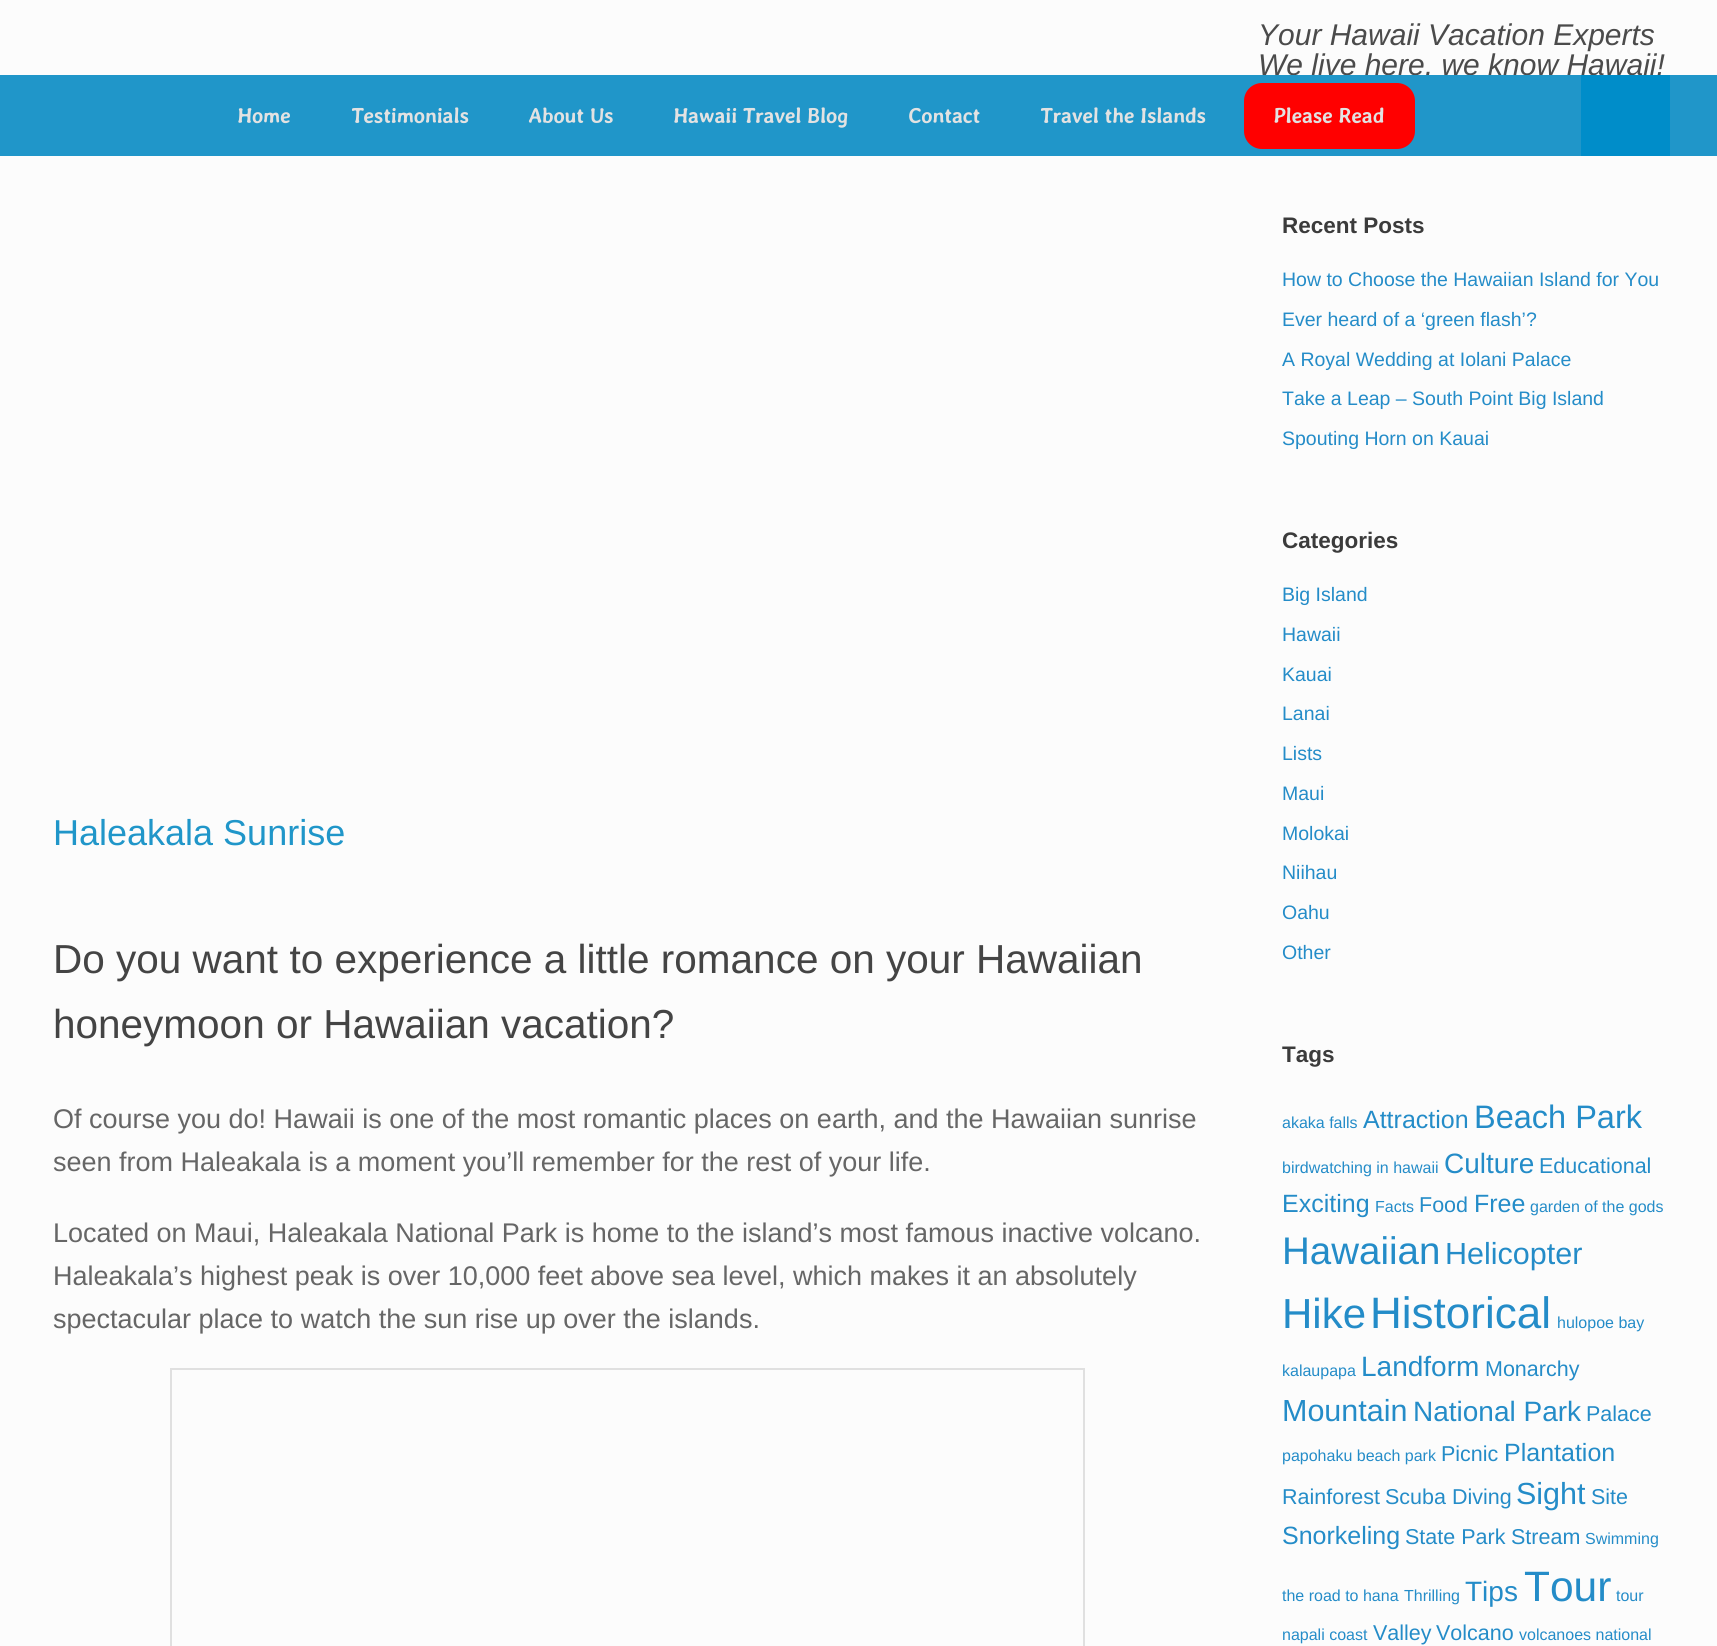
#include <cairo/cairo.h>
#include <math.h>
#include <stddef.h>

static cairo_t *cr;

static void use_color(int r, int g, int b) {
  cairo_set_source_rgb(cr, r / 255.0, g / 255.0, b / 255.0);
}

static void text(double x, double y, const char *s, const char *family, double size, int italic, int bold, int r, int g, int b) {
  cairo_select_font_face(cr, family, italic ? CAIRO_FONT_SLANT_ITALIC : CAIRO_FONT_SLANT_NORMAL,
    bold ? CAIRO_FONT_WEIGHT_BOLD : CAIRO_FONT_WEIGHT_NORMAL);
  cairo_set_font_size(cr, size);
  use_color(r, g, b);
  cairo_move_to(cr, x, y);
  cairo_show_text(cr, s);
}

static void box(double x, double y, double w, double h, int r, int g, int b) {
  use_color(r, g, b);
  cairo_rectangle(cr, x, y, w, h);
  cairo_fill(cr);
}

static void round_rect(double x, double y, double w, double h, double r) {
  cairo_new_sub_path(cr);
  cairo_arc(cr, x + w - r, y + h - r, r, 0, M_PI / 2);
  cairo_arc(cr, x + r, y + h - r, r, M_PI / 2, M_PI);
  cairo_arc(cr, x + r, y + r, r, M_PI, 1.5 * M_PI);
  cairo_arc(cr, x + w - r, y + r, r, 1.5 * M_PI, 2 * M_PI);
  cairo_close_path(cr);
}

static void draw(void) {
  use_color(252, 252, 252);
  cairo_paint(cr);
  cairo_rectangle(cr, 171, 1369, 913, 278);
  use_color(224, 224, 224);
  cairo_stroke(cr);
  text(1258, 45, "Your Hawaii Vacation Experts", "Liberation Sans", 30, 1, 0, 75, 75, 75);
  text(1258, 75, "We live here, we know Hawaii!", "Liberation Sans", 30, 1, 0, 75, 75, 75);
  box(0, 75, 1717, 81, 32, 150, 201);
  text(237, 123, "Home", "Averia Gruesa Libre", 21, 0, 1, 226, 226, 226);
  text(351, 123, "Testimonials", "Averia Gruesa Libre", 21, 0, 1, 226, 226, 226);
  text(528, 123, "About Us", "Averia Gruesa Libre", 21, 0, 1, 226, 226, 226);
  text(673, 123, "Hawaii Travel Blog", "Averia Gruesa Libre", 21, 0, 1, 226, 226, 226);
  text(908, 123, "Contact", "Averia Gruesa Libre", 21, 0, 1, 226, 226, 226);
  text(1040, 123, "Travel the Islands", "Averia Gruesa Libre", 21, 0, 1, 226, 226, 226);
  use_color(255, 0, 0);
  round_rect(1244, 83, 171, 66, 18);
  cairo_fill(cr);
  text(1273, 123, "Please Read", "Averia Gruesa Libre", 21, 0, 1, 226, 226, 226);
  box(1581, 75, 89, 81, 0, 141, 201);
  text(53, 845, "Haleakala Sunrise", "Liberation Sans", 36, 0, 0, 32, 150, 201);
  text(53, 973, "Do you want to experience a little romance on your Hawaiian", "Liberation Sans", 40.5, 0, 0, 68, 68, 68);
  text(53, 1038, "honeymoon or Hawaiian vacation?", "Liberation Sans", 40.5, 0, 0, 68, 68, 68);
  text(53, 1128, "Of course you do! Hawaii is one of the most romantic places on earth, and the Hawaiian sunrise", "Liberation Sans", 27, 0, 0, 102, 102, 102);
  text(53, 1171, "seen from Haleakala is a moment you’ll remember for the rest of your life.", "Liberation Sans", 27, 0, 0, 102, 102, 102);
  text(53, 1242, "Located on Maui, Haleakala National Park is home to the island’s most famous inactive volcano.", "Liberation Sans", 27, 0, 0, 102, 102, 102);
  text(53, 1285, "Haleakala’s highest peak is over 10,000 feet above sea level, which makes it an absolutely", "Liberation Sans", 27, 0, 0, 102, 102, 102);
  text(53, 1328, "spectacular place to watch the sun rise up over the islands.", "Liberation Sans", 27, 0, 0, 102, 102, 102);
  text(1282, 233, "Recent Posts", "Liberation Sans", 22.5, 0, 1, 59, 59, 59);
  text(1282, 286, "How to Choose the Hawaiian Island for You", "Liberation Sans", 19.5, 0, 0, 36, 140, 200);
  text(1282, 326, "Ever heard of a ‘green flash’?", "Liberation Sans", 19.5, 0, 0, 36, 140, 200);
  text(1282, 366, "A Royal Wedding at Iolani Palace", "Liberation Sans", 19.5, 0, 0, 36, 140, 200);
  text(1282, 405, "Take a Leap – South Point Big Island", "Liberation Sans", 19.5, 0, 0, 36, 140, 200);
  text(1282, 445, "Spouting Horn on Kauai", "Liberation Sans", 19.5, 0, 0, 36, 140, 200);
  text(1282, 548, "Categories", "Liberation Sans", 22.5, 0, 1, 59, 59, 59);
  text(1282, 601, "Big Island", "Liberation Sans", 19.5, 0, 0, 36, 140, 200);
  text(1282, 641, "Hawaii", "Liberation Sans", 19.5, 0, 0, 36, 140, 200);
  text(1282, 681, "Kauai", "Liberation Sans", 19.5, 0, 0, 36, 140, 200);
  text(1282, 720, "Lanai", "Liberation Sans", 19.5, 0, 0, 36, 140, 200);
  text(1282, 760, "Lists", "Liberation Sans", 19.5, 0, 0, 36, 140, 200);
  text(1282, 800, "Maui", "Liberation Sans", 19.5, 0, 0, 36, 140, 200);
  text(1282, 840, "Molokai", "Liberation Sans", 19.5, 0, 0, 36, 140, 200);
  text(1282, 879, "Niihau", "Liberation Sans", 19.5, 0, 0, 36, 140, 200);
  text(1282, 919, "Oahu", "Liberation Sans", 19.5, 0, 0, 36, 140, 200);
  text(1282, 959, "Other", "Liberation Sans", 19.5, 0, 0, 36, 140, 200);
  text(1282, 1062, "Tags", "Liberation Sans", 22.5, 0, 1, 59, 59, 59);
  text(1282, 1128, "akaka falls", "Liberation Sans", 16, 0, 0, 36, 140, 200);
  text(1363, 1128, "Attraction", "Liberation Sans", 25, 0, 0, 36, 140, 200);
  text(1474, 1128, "Beach Park", "Liberation Sans", 32.5, 0, 0, 36, 140, 200);
  text(1282, 1173, "birdwatching in hawaii", "Liberation Sans", 16, 0, 0, 36, 140, 200);
  text(1444, 1173, "Culture", "Liberation Sans", 28, 0, 0, 36, 140, 200);
  text(1539, 1173, "Educational", "Liberation Sans", 21.5, 0, 0, 36, 140, 200);
  text(1282, 1212, "Exciting", "Liberation Sans", 25, 0, 0, 36, 140, 200);
  text(1375, 1212, "Facts", "Liberation Sans", 16, 0, 0, 36, 140, 200);
  text(1419, 1212, "Food", "Liberation Sans", 21.5, 0, 0, 36, 140, 200);
  text(1474, 1212, "Free", "Liberation Sans", 25, 0, 0, 36, 140, 200);
  text(1530, 1212, "garden of the gods", "Liberation Sans", 16, 0, 0, 36, 140, 200);
  text(1282, 1264, "Hawaiian", "Liberation Sans", 38.5, 0, 0, 36, 140, 200);
  text(1445, 1264, "Helicopter", "Liberation Sans", 30.5, 0, 0, 36, 140, 200);
  text(1282, 1328, "Hike", "Liberation Sans", 42, 0, 0, 36, 140, 200);
  text(1370, 1328, "Historical", "Liberation Sans", 44, 0, 0, 36, 140, 200);
  text(1557, 1328, "hulopoe bay", "Liberation Sans", 16, 0, 0, 36, 140, 200);
  text(1282, 1376, "kalaupapa", "Liberation Sans", 16, 0, 0, 36, 140, 200);
  text(1361, 1376, "Landform", "Liberation Sans", 28, 0, 0, 36, 140, 200);
  text(1485, 1376, "Monarchy", "Liberation Sans", 21.5, 0, 0, 36, 140, 200);
  text(1282, 1421, "Mountain", "Liberation Sans", 30.5, 0, 0, 36, 140, 200);
  text(1413, 1421, "National Park", "Liberation Sans", 28, 0, 0, 36, 140, 200);
  text(1586, 1421, "Palace", "Liberation Sans", 21.5, 0, 0, 36, 140, 200);
  text(1282, 1461, "papohaku beach park", "Liberation Sans", 16, 0, 0, 36, 140, 200);
  text(1441, 1461, "Picnic", "Liberation Sans", 21.5, 0, 0, 36, 140, 200);
  text(1504, 1461, "Plantation", "Liberation Sans", 25, 0, 0, 36, 140, 200);
  text(1282, 1504, "Rainforest", "Liberation Sans", 21.5, 0, 0, 36, 140, 200);
  text(1385, 1504, "Scuba Diving", "Liberation Sans", 21.5, 0, 0, 36, 140, 200);
  text(1516, 1504, "Sight", "Liberation Sans", 30.5, 0, 0, 36, 140, 200);
  text(1591, 1504, "Site", "Liberation Sans", 21.5, 0, 0, 36, 140, 200);
  text(1282, 1544, "Snorkeling", "Liberation Sans", 25, 0, 0, 36, 140, 200);
  text(1405, 1544, "State Park", "Liberation Sans", 21.5, 0, 0, 36, 140, 200);
  text(1511, 1544, "Stream", "Liberation Sans", 21.5, 0, 0, 36, 140, 200);
  text(1585, 1544, "Swimming", "Liberation Sans", 16, 0, 0, 36, 140, 200);
  text(1282, 1601, "the road to hana", "Liberation Sans", 16, 0, 0, 36, 140, 200);
  text(1404, 1601, "Thrilling", "Liberation Sans", 16, 0, 0, 36, 140, 200);
  text(1465, 1601, "Tips", "Liberation Sans", 28, 0, 0, 36, 140, 200);
  text(1524, 1601, "Tour", "Liberation Sans", 42.5, 0, 0, 36, 140, 200);
  text(1616, 1601, "tour", "Liberation Sans", 16, 0, 0, 36, 140, 200);
  text(1282, 1640, "napali coast", "Liberation Sans", 16, 0, 0, 36, 140, 200);
  text(1373, 1640, "Valley", "Liberation Sans", 21.5, 0, 0, 36, 140, 200);
  text(1436, 1640, "Volcano", "Liberation Sans", 21.5, 0, 0, 36, 140, 200);
  text(1519, 1640, "volcanoes national", "Liberation Sans", 16, 0, 0, 36, 140, 200);
}

int main(void) {
  cairo_surface_t *surface = cairo_image_surface_create(CAIRO_FORMAT_RGB24, 1717, 1646);
  cr = cairo_create(surface);
  cairo_font_options_t *options = cairo_font_options_create();
  cairo_font_options_set_hint_metrics(options, CAIRO_HINT_METRICS_OFF);
  cairo_font_options_set_hint_style(options, CAIRO_HINT_STYLE_NONE);
  cairo_set_font_options(cr, options);
  cairo_set_miter_limit(cr, 4);
  draw();
  cairo_surface_write_to_png(surface, "out.png");
  cairo_font_options_destroy(options);
  cairo_destroy(cr);
  cairo_surface_destroy(surface);
  return 0;
}
